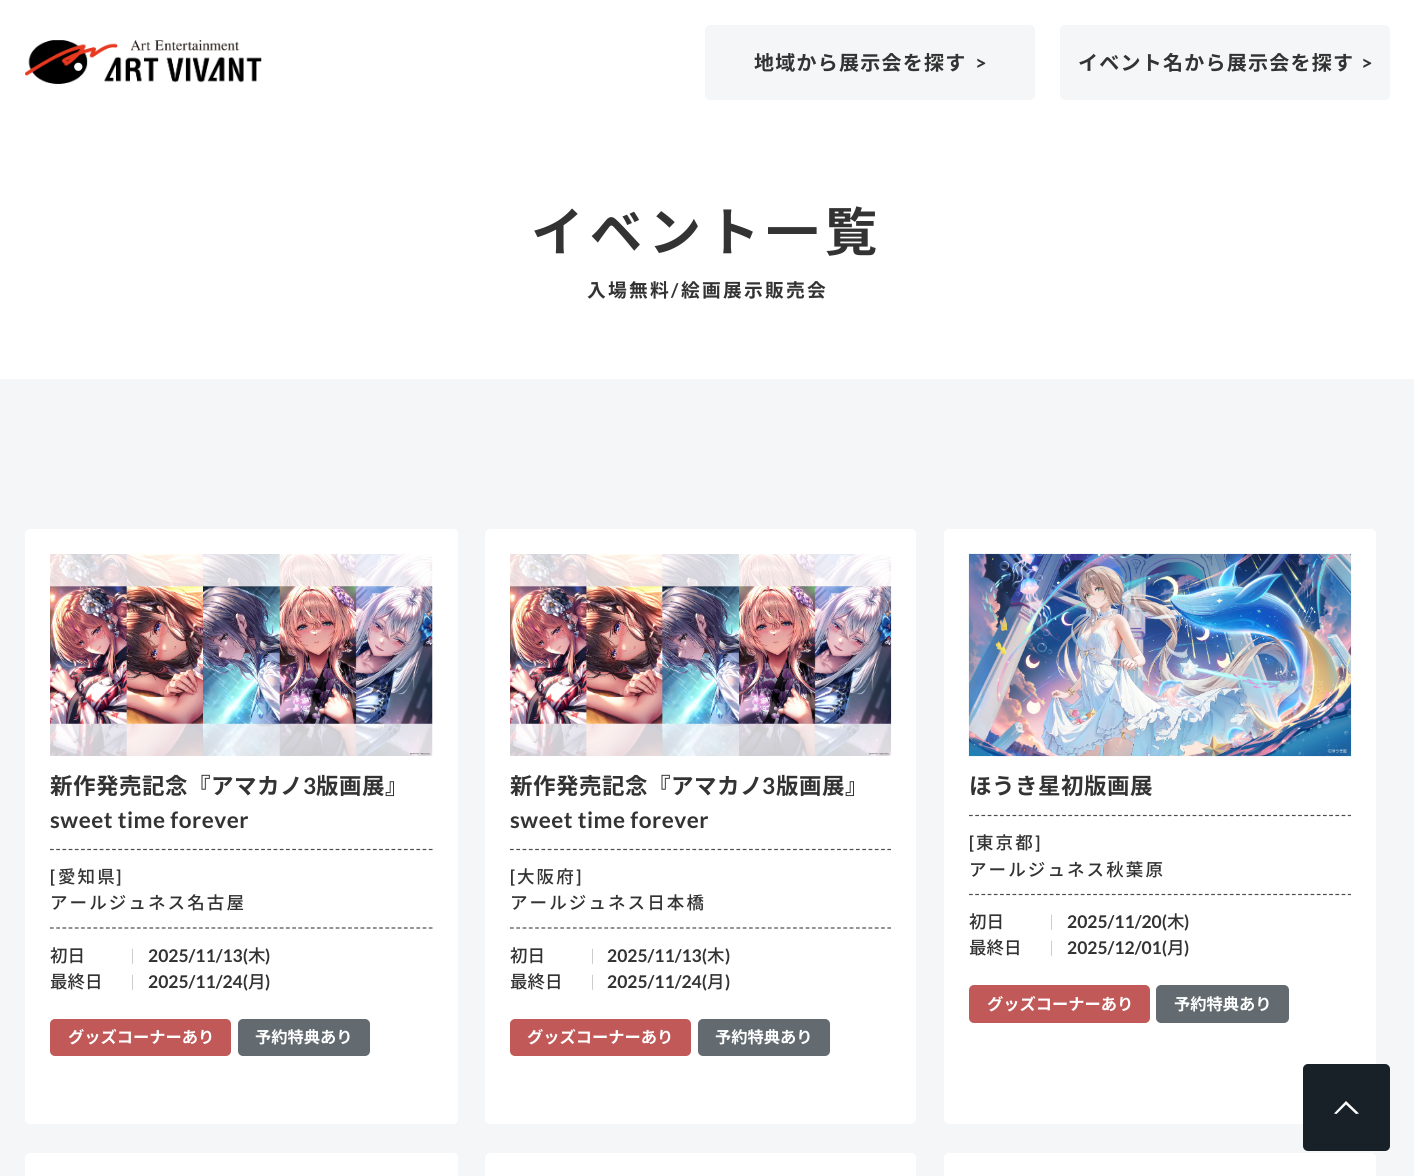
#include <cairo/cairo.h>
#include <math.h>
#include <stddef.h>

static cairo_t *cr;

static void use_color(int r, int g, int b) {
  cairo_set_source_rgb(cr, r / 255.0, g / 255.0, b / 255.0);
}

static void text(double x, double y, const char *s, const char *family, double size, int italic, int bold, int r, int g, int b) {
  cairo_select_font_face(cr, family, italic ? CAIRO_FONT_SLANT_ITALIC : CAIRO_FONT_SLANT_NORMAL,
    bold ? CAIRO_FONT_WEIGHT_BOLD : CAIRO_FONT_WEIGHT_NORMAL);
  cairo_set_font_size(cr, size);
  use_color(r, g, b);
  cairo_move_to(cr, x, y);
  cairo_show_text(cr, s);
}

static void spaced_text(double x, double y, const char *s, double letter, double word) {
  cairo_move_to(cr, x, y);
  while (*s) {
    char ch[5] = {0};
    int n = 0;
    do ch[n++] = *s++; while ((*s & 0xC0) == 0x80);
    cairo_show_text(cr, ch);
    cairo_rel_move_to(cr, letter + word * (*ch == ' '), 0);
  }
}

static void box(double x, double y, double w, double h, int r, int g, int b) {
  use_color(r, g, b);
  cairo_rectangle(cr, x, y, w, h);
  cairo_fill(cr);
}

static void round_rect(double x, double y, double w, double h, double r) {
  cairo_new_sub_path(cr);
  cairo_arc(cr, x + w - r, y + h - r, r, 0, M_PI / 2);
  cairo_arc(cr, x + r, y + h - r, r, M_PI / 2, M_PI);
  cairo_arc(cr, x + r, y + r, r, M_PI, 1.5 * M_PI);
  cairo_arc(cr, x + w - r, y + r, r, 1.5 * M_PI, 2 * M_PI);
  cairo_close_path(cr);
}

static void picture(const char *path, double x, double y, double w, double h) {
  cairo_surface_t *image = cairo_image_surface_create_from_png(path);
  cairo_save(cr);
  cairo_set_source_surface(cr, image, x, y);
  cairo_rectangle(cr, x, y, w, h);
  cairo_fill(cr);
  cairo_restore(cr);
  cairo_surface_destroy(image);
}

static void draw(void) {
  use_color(255, 255, 255);
  cairo_paint(cr);
  picture("img_01.png", 25, 40, 237, 44);
  use_color(244, 246, 247);
  round_rect(705, 25, 330, 75, 5);
  cairo_fill(cr);
  round_rect(1060, 25, 330, 75, 5);
  cairo_fill(cr);
  box(0, 379, 1414, 797, 244, 246, 247);
  use_color(255, 255, 255);
  round_rect(25, 529, 433, 595, 5);
  cairo_fill(cr);
  picture("img_02.png", 50, 554, 383, 202);
  cairo_new_path(cr);
  cairo_move_to(cr, 50, 849.5);
  cairo_line_to(cr, 432.5, 849.5);
  use_color(76, 76, 76);
  cairo_set_line_width(cr, 1.2);
  cairo_set_dash(cr, (double[]){3.75, 2.46}, 2, 0);
  cairo_stroke(cr);
  cairo_new_path(cr);
  cairo_move_to(cr, 50, 928);
  cairo_line_to(cr, 432.5, 928);
  cairo_stroke(cr);
  use_color(193, 89, 89);
  round_rect(50, 1019, 181, 37, 5);
  cairo_fill(cr);
  use_color(99, 107, 112);
  round_rect(238, 1019, 132, 37, 5);
  cairo_fill(cr);
  use_color(255, 255, 255);
  round_rect(485, 529, 431, 595, 5);
  cairo_fill(cr);
  picture("img_03.png", 510, 554, 382, 202);
  cairo_new_path(cr);
  cairo_move_to(cr, 510, 849.5);
  cairo_line_to(cr, 891, 849.5);
  use_color(76, 76, 76);
  cairo_set_dash(cr, (double[]){3.75, 2.54}, 2, 0);
  cairo_stroke(cr);
  cairo_new_path(cr);
  cairo_move_to(cr, 510, 928);
  cairo_line_to(cr, 891, 928);
  cairo_stroke(cr);
  use_color(193, 89, 89);
  round_rect(510, 1019, 181, 37, 5);
  cairo_fill(cr);
  use_color(99, 107, 112);
  round_rect(698, 1019, 132, 37, 5);
  cairo_fill(cr);
  use_color(255, 255, 255);
  round_rect(944, 529, 432, 595, 5);
  cairo_fill(cr);
  picture("img_04.png", 968, 553, 384, 204);
  cairo_new_path(cr);
  cairo_move_to(cr, 969, 815.5);
  cairo_line_to(cr, 1351, 815.5);
  use_color(76, 76, 76);
  cairo_set_dash(cr, (double[]){3.75, 2.46}, 2, 0);
  cairo_stroke(cr);
  cairo_new_path(cr);
  cairo_move_to(cr, 969, 894.5);
  cairo_line_to(cr, 1351, 894.5);
  cairo_stroke(cr);
  use_color(193, 89, 89);
  round_rect(969, 985, 181, 38, 5);
  cairo_fill(cr);
  use_color(99, 107, 112);
  round_rect(1156, 985, 133, 38, 5);
  cairo_fill(cr);
  use_color(255, 255, 255);
  round_rect(25, 1153, 433, 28, 5);
  cairo_fill(cr);
  round_rect(485, 1153, 431, 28, 5);
  cairo_fill(cr);
  round_rect(944, 1153, 432, 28, 5);
  cairo_fill(cr);
  use_color(23, 33, 39);
  round_rect(1303, 1064, 87, 87, 5);
  cairo_fill(cr);
  use_color(255, 255, 255);
  cairo_set_fill_rule(cr, CAIRO_FILL_RULE_EVEN_ODD);
  cairo_new_path(cr);
  cairo_move_to(cr, 1359, 1113.5);
  cairo_line_to(cr, 1346, 1101);
  cairo_line_to(cr, 1334, 1113.5);
  cairo_line_to(cr, 1336.5, 1114);
  cairo_line_to(cr, 1346, 1104.5);
  cairo_line_to(cr, 1356, 1114);
  cairo_close_path(cr);
  cairo_fill(cr);
  cairo_select_font_face(cr, "Noto Sans JP", CAIRO_FONT_SLANT_NORMAL, CAIRO_FONT_WEIGHT_BOLD);
  cairo_set_font_size(cr, 20);
  use_color(51, 51, 51);
  spaced_text(754, 70, "地域から展示会を探す", 1.25, 0);
  cairo_select_font_face(cr, "Lato", CAIRO_FONT_SLANT_NORMAL, CAIRO_FONT_WEIGHT_BOLD);
  spaced_text(975, 70, ">", -3, 0);
  cairo_select_font_face(cr, "Noto Sans JP", CAIRO_FONT_SLANT_NORMAL, CAIRO_FONT_WEIGHT_BOLD);
  spaced_text(1078, 70, "イベント名から展示会を探す", 1.25, 0);
  cairo_select_font_face(cr, "Lato", CAIRO_FONT_SLANT_NORMAL, CAIRO_FONT_WEIGHT_BOLD);
  spaced_text(1361, 70, ">", -3, 0);
  cairo_select_font_face(cr, "Noto Sans JP", CAIRO_FONT_SLANT_NORMAL, CAIRO_FONT_WEIGHT_BOLD);
  cairo_set_font_size(cr, 52.5);
  spaced_text(531, 251, "イベント一覧", 6.25, 0);
  cairo_set_font_size(cr, 18.75);
  spaced_text(587, 297, "入場無料", 2.25, 0);
  cairo_select_font_face(cr, "Lato", CAIRO_FONT_SLANT_NORMAL, CAIRO_FONT_WEIGHT_BOLD);
  spaced_text(671, 297, "/", 2.25, 0);
  cairo_select_font_face(cr, "Noto Sans JP", CAIRO_FONT_SLANT_NORMAL, CAIRO_FONT_WEIGHT_BOLD);
  spaced_text(681, 297, "絵画展示販売会", 2.25, 0);
  cairo_set_font_size(cr, 22.5);
  spaced_text(50, 794, "新作発売記念『アマカノ", 0.5, 0);
  cairo_select_font_face(cr, "Lato", CAIRO_FONT_SLANT_NORMAL, CAIRO_FONT_WEIGHT_BOLD);
  spaced_text(303, 794, "3", 0.5, 0);
  cairo_select_font_face(cr, "Noto Sans JP", CAIRO_FONT_SLANT_NORMAL, CAIRO_FONT_WEIGHT_BOLD);
  spaced_text(316, 794, "版画展』", 0.5, 0);
  cairo_select_font_face(cr, "Lato", CAIRO_FONT_SLANT_NORMAL, CAIRO_FONT_WEIGHT_BOLD);
  spaced_text(50, 828, "sweet time forever", 0.5, 0);
  cairo_set_font_size(cr, 17.5);
  spaced_text(50, 883, "[", 2.1, 0);
  cairo_select_font_face(cr, "Noto Sans JP Medium", CAIRO_FONT_SLANT_NORMAL, CAIRO_FONT_WEIGHT_NORMAL);
  spaced_text(58, 883, "愛知県", 2.1, 0);
  cairo_select_font_face(cr, "Lato", CAIRO_FONT_SLANT_NORMAL, CAIRO_FONT_WEIGHT_BOLD);
  spaced_text(116, 883, "]", 2.1, 0);
  cairo_select_font_face(cr, "Noto Sans JP Medium", CAIRO_FONT_SLANT_NORMAL, CAIRO_FONT_WEIGHT_NORMAL);
  spaced_text(50, 909, "アールジュネス名古屋", 2.1, 0);
  text(50, 962, "初日", "Noto Sans JP Medium", 17.5, 0, 0, 51, 51, 51);
  text(125, 962, "｜", "Noto Sans JP Medium", 15, 0, 0, 179, 179, 179);
  text(148, 962, "2025/11/13(", "Lato", 17.5, 0, 1, 51, 51, 51);
  text(248, 962, "木", "Noto Sans JP Medium", 17.5, 0, 0, 51, 51, 51);
  text(265, 962, ")", "Lato", 17.5, 0, 1, 51, 51, 51);
  text(50, 988, "最終日", "Noto Sans JP Medium", 17.5, 0, 0, 51, 51, 51);
  text(125, 988, "｜", "Noto Sans JP Medium", 15, 0, 0, 179, 179, 179);
  text(148, 988, "2025/11/24(", "Lato", 17.5, 0, 1, 51, 51, 51);
  text(248, 988, "月", "Noto Sans JP Medium", 17.5, 0, 0, 51, 51, 51);
  text(265, 988, ")", "Lato", 17.5, 0, 1, 51, 51, 51);
  text(68, 1043, "グッズコーナーあり", "Noto Sans JP", 16.25, 0, 1, 255, 255, 255);
  text(255, 1043, "予約特典あり", "Noto Sans JP", 16.25, 0, 1, 255, 255, 255);
  cairo_set_font_size(cr, 22.5);
  use_color(51, 51, 51);
  spaced_text(510, 794, "新作発売記念『アマカノ", 0.5, 0);
  cairo_select_font_face(cr, "Lato", CAIRO_FONT_SLANT_NORMAL, CAIRO_FONT_WEIGHT_BOLD);
  spaced_text(762, 794, "3", 0.5, 0);
  cairo_select_font_face(cr, "Noto Sans JP", CAIRO_FONT_SLANT_NORMAL, CAIRO_FONT_WEIGHT_BOLD);
  spaced_text(776, 794, "版画展』", 0.5, 0);
  cairo_select_font_face(cr, "Lato", CAIRO_FONT_SLANT_NORMAL, CAIRO_FONT_WEIGHT_BOLD);
  spaced_text(510, 828, "sweet time forever", 0.5, 0);
  cairo_set_font_size(cr, 17.5);
  spaced_text(510, 883, "[", 2.1, 0);
  cairo_select_font_face(cr, "Noto Sans JP Medium", CAIRO_FONT_SLANT_NORMAL, CAIRO_FONT_WEIGHT_NORMAL);
  spaced_text(517, 883, "大阪府", 2.1, 0);
  cairo_select_font_face(cr, "Lato", CAIRO_FONT_SLANT_NORMAL, CAIRO_FONT_WEIGHT_BOLD);
  spaced_text(576, 883, "]", 2.1, 0);
  cairo_select_font_face(cr, "Noto Sans JP Medium", CAIRO_FONT_SLANT_NORMAL, CAIRO_FONT_WEIGHT_NORMAL);
  spaced_text(510, 909, "アールジュネス日本橋", 2.1, 0);
  text(510, 962, "初日", "Noto Sans JP Medium", 17.5, 0, 0, 51, 51, 51);
  text(585, 962, "｜", "Noto Sans JP Medium", 15, 0, 0, 179, 179, 179);
  text(607, 962, "2025/11/13(", "Lato", 17.5, 0, 1, 51, 51, 51);
  text(707, 962, "木", "Noto Sans JP Medium", 17.5, 0, 0, 51, 51, 51);
  text(725, 962, ")", "Lato", 17.5, 0, 1, 51, 51, 51);
  text(510, 988, "最終日", "Noto Sans JP Medium", 17.5, 0, 0, 51, 51, 51);
  text(585, 988, "｜", "Noto Sans JP Medium", 15, 0, 0, 179, 179, 179);
  text(607, 988, "2025/11/24(", "Lato", 17.5, 0, 1, 51, 51, 51);
  text(707, 988, "月", "Noto Sans JP Medium", 17.5, 0, 0, 51, 51, 51);
  text(725, 988, ")", "Lato", 17.5, 0, 1, 51, 51, 51);
  text(527, 1043, "グッズコーナーあり", "Noto Sans JP", 16.25, 0, 1, 255, 255, 255);
  text(715, 1043, "予約特典あり", "Noto Sans JP", 16.25, 0, 1, 255, 255, 255);
  cairo_set_font_size(cr, 22.5);
  use_color(51, 51, 51);
  spaced_text(969, 794, "ほうき星初版画展", 0.5, 0);
  cairo_select_font_face(cr, "Lato", CAIRO_FONT_SLANT_NORMAL, CAIRO_FONT_WEIGHT_BOLD);
  cairo_set_font_size(cr, 17.5);
  spaced_text(969, 849, "[", 2.1, 0);
  cairo_select_font_face(cr, "Noto Sans JP Medium", CAIRO_FONT_SLANT_NORMAL, CAIRO_FONT_WEIGHT_NORMAL);
  spaced_text(976, 849, "東京都", 2.1, 0);
  cairo_select_font_face(cr, "Lato", CAIRO_FONT_SLANT_NORMAL, CAIRO_FONT_WEIGHT_BOLD);
  spaced_text(1035, 849, "]", 2.1, 0);
  cairo_select_font_face(cr, "Noto Sans JP Medium", CAIRO_FONT_SLANT_NORMAL, CAIRO_FONT_WEIGHT_NORMAL);
  spaced_text(969, 876, "アールジュネス秋葉原", 2.1, 0);
  text(969, 928, "初日", "Noto Sans JP Medium", 17.5, 0, 0, 51, 51, 51);
  text(1044, 928, "｜", "Noto Sans JP Medium", 15, 0, 0, 179, 179, 179);
  text(1067, 928, "2025/11/20(", "Lato", 17.5, 0, 1, 51, 51, 51);
  text(1167, 928, "木", "Noto Sans JP Medium", 17.5, 0, 0, 51, 51, 51);
  text(1184, 928, ")", "Lato", 17.5, 0, 1, 51, 51, 51);
  text(969, 954, "最終日", "Noto Sans JP Medium", 17.5, 0, 0, 51, 51, 51);
  text(1044, 954, "｜", "Noto Sans JP Medium", 15, 0, 0, 179, 179, 179);
  text(1067, 954, "2025/12/01(", "Lato", 17.5, 0, 1, 51, 51, 51);
  text(1167, 954, "月", "Noto Sans JP Medium", 17.5, 0, 0, 51, 51, 51);
  text(1184, 954, ")", "Lato", 17.5, 0, 1, 51, 51, 51);
  text(987, 1010, "グッズコーナーあり", "Noto Sans JP", 16.25, 0, 1, 255, 255, 255);
  text(1174, 1010, "予約特典あり", "Noto Sans JP", 16.25, 0, 1, 255, 255, 255);
}

int main(void) {
  cairo_surface_t *surface = cairo_image_surface_create(CAIRO_FORMAT_RGB24, 1414, 1176);
  cr = cairo_create(surface);
  cairo_font_options_t *options = cairo_font_options_create();
  cairo_font_options_set_hint_metrics(options, CAIRO_HINT_METRICS_OFF);
  cairo_font_options_set_hint_style(options, CAIRO_HINT_STYLE_NONE);
  cairo_set_font_options(cr, options);
  cairo_set_miter_limit(cr, 4);
  draw();
  cairo_surface_write_to_png(surface, "out.png");
  cairo_font_options_destroy(options);
  cairo_destroy(cr);
  cairo_surface_destroy(surface);
  return 0;
}
